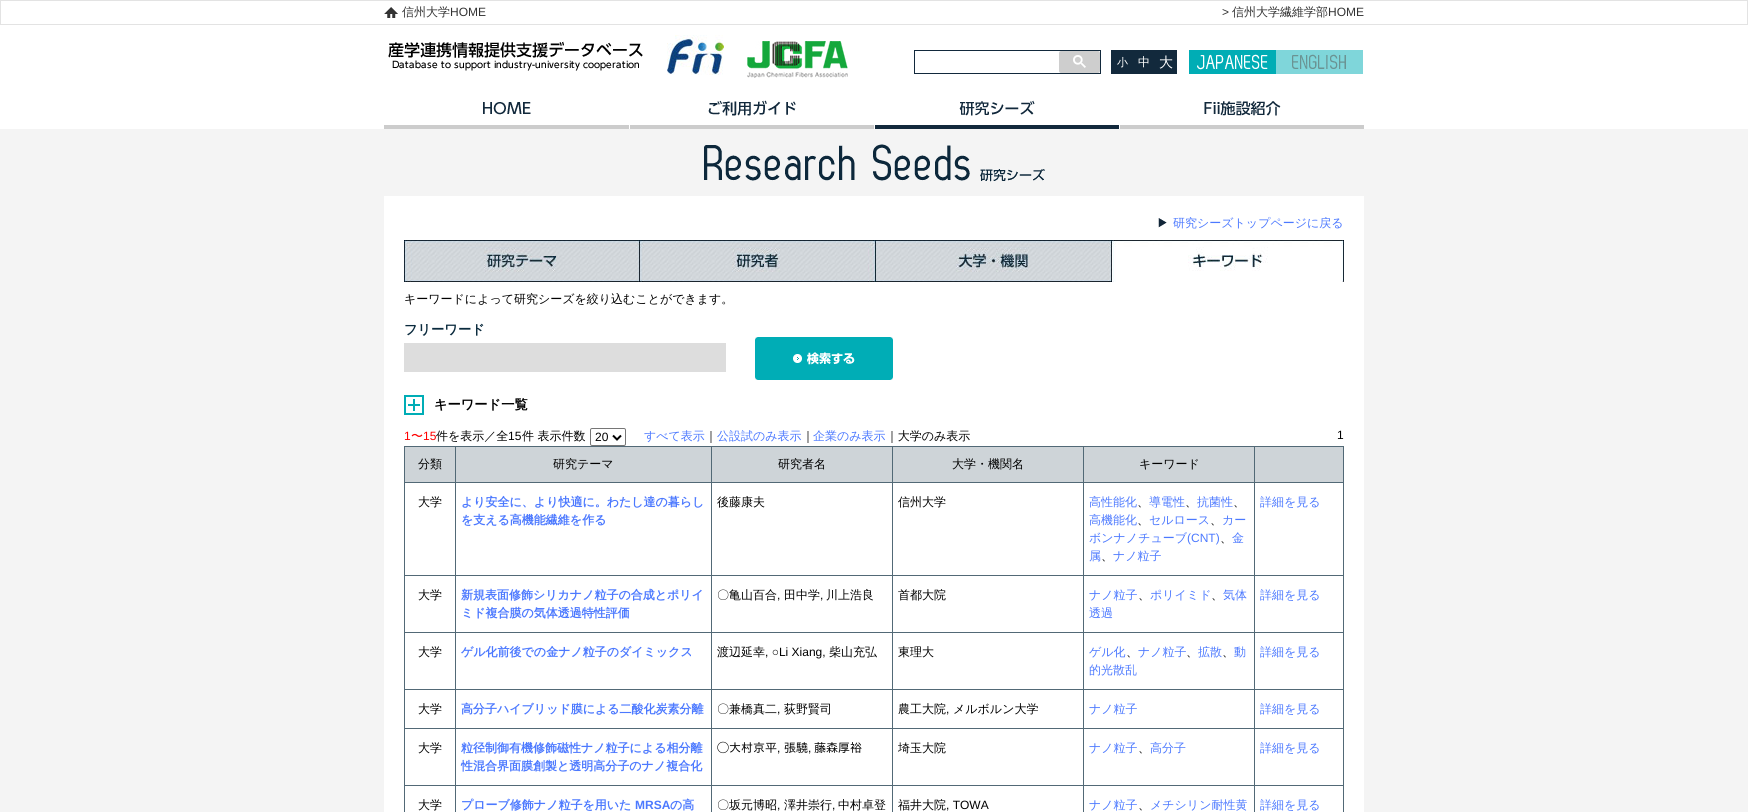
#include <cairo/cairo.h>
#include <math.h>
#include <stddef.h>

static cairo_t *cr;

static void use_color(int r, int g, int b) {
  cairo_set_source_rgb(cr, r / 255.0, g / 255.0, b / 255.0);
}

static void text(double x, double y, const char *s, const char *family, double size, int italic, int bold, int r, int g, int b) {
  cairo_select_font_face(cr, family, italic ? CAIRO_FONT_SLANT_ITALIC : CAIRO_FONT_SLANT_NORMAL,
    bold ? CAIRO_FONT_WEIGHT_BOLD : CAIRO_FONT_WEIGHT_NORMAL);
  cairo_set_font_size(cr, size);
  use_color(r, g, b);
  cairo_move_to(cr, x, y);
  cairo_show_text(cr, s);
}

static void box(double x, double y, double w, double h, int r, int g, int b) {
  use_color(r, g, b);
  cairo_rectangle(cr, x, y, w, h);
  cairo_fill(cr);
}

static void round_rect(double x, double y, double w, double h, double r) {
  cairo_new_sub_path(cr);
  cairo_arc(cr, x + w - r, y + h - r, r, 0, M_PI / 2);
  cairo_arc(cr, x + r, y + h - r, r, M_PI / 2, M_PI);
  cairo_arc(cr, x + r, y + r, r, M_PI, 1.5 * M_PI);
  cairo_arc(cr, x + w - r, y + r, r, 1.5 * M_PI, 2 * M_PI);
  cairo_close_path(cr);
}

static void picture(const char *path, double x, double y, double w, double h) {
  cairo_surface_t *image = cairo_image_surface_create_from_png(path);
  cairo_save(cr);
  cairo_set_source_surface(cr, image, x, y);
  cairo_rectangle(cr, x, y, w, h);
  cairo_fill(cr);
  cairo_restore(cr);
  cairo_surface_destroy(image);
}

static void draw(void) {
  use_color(244, 244, 244);
  cairo_paint(cr);
  box(0, 1, 1748, 128, 255, 255, 255);
  cairo_rectangle(cr, 0.5, 0.5, 1747, 24);
  use_color(227, 227, 227);
  cairo_set_line_width(cr, 1);
  cairo_stroke(cr);
  picture("img_01.png", 384, 7, 14, 11);
  picture("img_02.png", 388, 41, 255, 30);
  picture("img_03.png", 667, 35, 57, 40);
  picture("img_04.png", 747, 41, 101, 37);
  cairo_rectangle(cr, 914.5, 50.5, 186, 23);
  use_color(18, 41, 60);
  cairo_stroke(cr);
  use_color(206, 206, 206);
  round_rect(1059, 51, 41, 22, 2);
  cairo_fill(cr);
  picture("img_05.png", 1073, 55, 13, 13);
  box(1111, 50, 66, 24, 18, 41, 60);
  picture("img_06.png", 1189, 50, 87, 24);
  picture("img_07.png", 1276, 50, 87, 24);
  picture("img_08.png", 384, 102, 245, 27);
  picture("img_09.png", 630, 100, 244, 29);
  picture("img_10.png", 875, 100, 244, 29);
  picture("img_11.png", 1120, 101, 244, 28);
  picture("img_12.png", 704, 144, 341, 38);
  box(384, 196, 980, 616, 255, 255, 255);
  picture("img_13.png", 1158, 218, 9, 10);
  picture("img_14.png", 404, 240, 236, 42);
  picture("img_15.png", 640, 240, 236, 42);
  picture("img_16.png", 876, 240, 236, 42);
  picture("img_17.png", 1112, 240, 232, 42);
  box(404, 343, 322, 29, 221, 221, 221);
  picture("img_18.png", 755, 337, 138, 43);
  picture("img_19.png", 404, 395, 20, 20);
  round_rect(590.5, 428.5, 35, 17, 1.5);
  use_color(118, 118, 118);
  cairo_stroke(cr);
  cairo_new_path(cr);
  cairo_move_to(cr, 613, 435.5);
  cairo_line_to(cr, 617, 439.5);
  cairo_line_to(cr, 621, 435.5);
  use_color(0, 0, 0);
  cairo_set_line_width(cr, 2);
  cairo_stroke(cr);
  box(404, 446, 940, 1, 82, 105, 118);
  box(1343, 446, 1, 366, 82, 105, 118);
  box(404, 446, 1, 366, 82, 105, 118);
  box(405, 447, 50, 35, 206, 212, 216);
  box(456, 447, 255, 35, 206, 212, 216);
  box(1254, 482, 90, 1, 82, 105, 118);
  box(1254, 575, 90, 1, 82, 105, 118);
  box(1254, 632, 90, 1, 82, 105, 118);
  box(1254, 689, 90, 1, 82, 105, 118);
  box(1254, 728, 90, 1, 82, 105, 118);
  box(1254, 785, 90, 1, 82, 105, 118);
  box(1254, 785, 1, 27, 82, 105, 118);
  box(1083, 785, 172, 1, 82, 105, 118);
  box(1254, 728, 1, 58, 82, 105, 118);
  box(1083, 728, 172, 1, 82, 105, 118);
  box(1254, 689, 1, 40, 82, 105, 118);
  box(1083, 689, 172, 1, 82, 105, 118);
  box(1254, 632, 1, 58, 82, 105, 118);
  box(1083, 632, 172, 1, 82, 105, 118);
  box(1254, 575, 1, 58, 82, 105, 118);
  box(1083, 575, 172, 1, 82, 105, 118);
  box(1254, 482, 1, 94, 82, 105, 118);
  box(1083, 482, 172, 1, 82, 105, 118);
  box(1083, 785, 1, 27, 82, 105, 118);
  box(892, 785, 192, 1, 82, 105, 118);
  box(1083, 728, 1, 58, 82, 105, 118);
  box(892, 728, 192, 1, 82, 105, 118);
  box(1083, 689, 1, 40, 82, 105, 118);
  box(892, 689, 192, 1, 82, 105, 118);
  box(1083, 632, 1, 58, 82, 105, 118);
  box(892, 632, 192, 1, 82, 105, 118);
  box(1083, 575, 1, 58, 82, 105, 118);
  box(892, 575, 192, 1, 82, 105, 118);
  box(1083, 482, 1, 94, 82, 105, 118);
  box(892, 482, 192, 1, 82, 105, 118);
  box(892, 785, 1, 27, 82, 105, 118);
  box(711, 785, 182, 1, 82, 105, 118);
  box(892, 728, 1, 58, 82, 105, 118);
  box(711, 728, 182, 1, 82, 105, 118);
  box(892, 689, 1, 40, 82, 105, 118);
  box(711, 689, 182, 1, 82, 105, 118);
  box(892, 632, 1, 58, 82, 105, 118);
  box(711, 632, 182, 1, 82, 105, 118);
  box(892, 575, 1, 58, 82, 105, 118);
  box(711, 575, 182, 1, 82, 105, 118);
  box(892, 482, 1, 94, 82, 105, 118);
  box(711, 482, 182, 1, 82, 105, 118);
  box(711, 785, 1, 27, 82, 105, 118);
  box(455, 785, 257, 1, 82, 105, 118);
  box(711, 728, 1, 58, 82, 105, 118);
  box(455, 728, 257, 1, 82, 105, 118);
  box(711, 689, 1, 40, 82, 105, 118);
  box(455, 689, 257, 1, 82, 105, 118);
  box(711, 632, 1, 58, 82, 105, 118);
  box(455, 632, 257, 1, 82, 105, 118);
  box(711, 575, 1, 58, 82, 105, 118);
  box(455, 575, 257, 1, 82, 105, 118);
  box(711, 482, 1, 94, 82, 105, 118);
  box(455, 482, 257, 1, 82, 105, 118);
  box(455, 785, 1, 27, 82, 105, 118);
  box(404, 785, 52, 1, 82, 105, 118);
  box(455, 728, 1, 58, 82, 105, 118);
  box(404, 728, 52, 1, 82, 105, 118);
  box(455, 689, 1, 40, 82, 105, 118);
  box(404, 689, 52, 1, 82, 105, 118);
  box(455, 632, 1, 58, 82, 105, 118);
  box(404, 632, 52, 1, 82, 105, 118);
  box(455, 575, 1, 58, 82, 105, 118);
  box(404, 575, 52, 1, 82, 105, 118);
  box(455, 482, 1, 94, 82, 105, 118);
  box(404, 482, 52, 1, 82, 105, 118);
  box(455, 446, 1, 37, 82, 105, 118);
  box(712, 447, 180, 35, 206, 212, 216);
  box(711, 446, 1, 37, 82, 105, 118);
  box(893, 447, 190, 35, 206, 212, 216);
  box(892, 446, 1, 37, 82, 105, 118);
  box(1084, 447, 170, 35, 206, 212, 216);
  box(1083, 446, 1, 37, 82, 105, 118);
  box(1255, 447, 88, 35, 206, 212, 216);
  box(1254, 446, 1, 37, 82, 105, 118);
  text(402, 16, "信州大学", "WenQuanYi Zen Hei Medium", 12, 0, 0, 51, 51, 51);
  text(450, 16, "HOME", "Liberation Sans", 12, 0, 0, 51, 51, 51);
  text(1222, 16, ">", "Liberation Sans", 12, 0, 0, 51, 51, 51);
  text(1232, 16, "信州大学繊維学部", "WenQuanYi Zen Hei Medium", 12, 0, 0, 51, 51, 51);
  text(1328, 16, "HOME", "Liberation Sans", 12, 0, 0, 51, 51, 51);
  text(1117, 66, "小", "WenQuanYi Zen Hei Medium", 11, 0, 0, 255, 255, 255);
  text(1138, 66, "中", "WenQuanYi Zen Hei Medium", 12, 0, 0, 255, 255, 255);
  text(1159, 67, "大", "WenQuanYi Zen Hei Medium", 14, 0, 0, 255, 255, 255);
  text(1173, 227, "研究シーズトップページに戻る", "WenQuanYi Zen Hei Medium", 12, 0, 0, 76, 121, 255);
  text(404, 303, "キーワードによって研究シーズを絞り込むことができます。", "WenQuanYi Zen Hei Medium", 12, 0, 0, 0, 0, 0);
  text(404, 334, "フリーワード", "WenQuanYi Zen Hei", 13.25, 0, 1, 10, 42, 61);
  text(434, 409, "キーワード一覧", "WenQuanYi Zen Hei", 13.25, 0, 1, 0, 0, 0);
  text(404, 440, "1", "Liberation Sans", 12, 0, 0, 255, 0, 0);
  text(411, 440, "〜", "WenQuanYi Zen Hei Medium", 12, 0, 0, 255, 0, 0);
  text(423, 440, "15", "Liberation Sans", 12, 0, 0, 255, 0, 0);
  text(436, 440, "件を表示／全", "WenQuanYi Zen Hei Medium", 12, 0, 0, 0, 0, 0);
  text(508, 440, "15", "Liberation Sans", 12, 0, 0, 0, 0, 0);
  text(522, 440, "件 表示件数", "WenQuanYi Zen Hei Medium", 12, 0, 0, 0, 0, 0);
  text(595, 441, "20", "Liberation Sans", 12, 0, 0, 0, 0, 0);
  text(644, 440, "すべて表示", "WenQuanYi Zen Hei Medium", 12, 0, 0, 76, 121, 255);
  text(705, 440, "｜", "WenQuanYi Zen Hei Medium", 12, 0, 0, 0, 0, 0);
  text(717, 440, "公設試のみ表示", "WenQuanYi Zen Hei Medium", 12, 0, 0, 76, 121, 255);
  text(802, 440, "｜", "WenQuanYi Zen Hei Medium", 12, 0, 0, 0, 0, 0);
  text(813, 440, "企業のみ表示", "WenQuanYi Zen Hei Medium", 12, 0, 0, 76, 121, 255);
  text(886, 440, "｜大学のみ表示", "WenQuanYi Zen Hei Medium", 12, 0, 0, 0, 0, 0);
  text(1337, 439, "1", "Liberation Sans", 12, 0, 0, 0, 0, 0);
  text(418, 468, "分類", "WenQuanYi Zen Hei Medium", 12, 0, 0, 0, 0, 0);
  text(553, 468, "研究テーマ", "WenQuanYi Zen Hei Medium", 12, 0, 0, 0, 0, 0);
  text(778, 468, "研究者名", "WenQuanYi Zen Hei Medium", 12, 0, 0, 0, 0, 0);
  text(952, 468, "大学・機関名", "WenQuanYi Zen Hei Medium", 12, 0, 0, 0, 0, 0);
  text(1139, 468, "キーワード", "WenQuanYi Zen Hei Medium", 12, 0, 0, 0, 0, 0);
  text(418, 506, "大学", "WenQuanYi Zen Hei Medium", 12, 0, 0, 0, 0, 0);
  text(461, 506, "より安全に、より快適に。わたし達の暮らし", "WenQuanYi Zen Hei", 12, 0, 1, 76, 121, 255);
  text(461, 524, "を支える高機能繊維を作る", "WenQuanYi Zen Hei", 12, 0, 1, 76, 121, 255);
  text(717, 506, "後藤康夫", "WenQuanYi Zen Hei Medium", 12, 0, 0, 0, 0, 0);
  text(898, 506, "信州大学", "WenQuanYi Zen Hei Medium", 12, 0, 0, 0, 0, 0);
  text(1089, 506, "高性能化", "WenQuanYi Zen Hei Medium", 12, 0, 0, 76, 121, 255);
  text(1137, 506, "、", "WenQuanYi Zen Hei Medium", 12, 0, 0, 0, 0, 0);
  text(1149, 506, "導電性", "WenQuanYi Zen Hei Medium", 12, 0, 0, 76, 121, 255);
  text(1185, 506, "、", "WenQuanYi Zen Hei Medium", 12, 0, 0, 0, 0, 0);
  text(1197, 506, "抗菌性", "WenQuanYi Zen Hei Medium", 12, 0, 0, 76, 121, 255);
  text(1233, 506, "、", "WenQuanYi Zen Hei Medium", 12, 0, 0, 0, 0, 0);
  text(1089, 524, "高機能化", "WenQuanYi Zen Hei Medium", 12, 0, 0, 76, 121, 255);
  text(1137, 524, "、", "WenQuanYi Zen Hei Medium", 12, 0, 0, 0, 0, 0);
  text(1149, 524, "セルロース", "WenQuanYi Zen Hei Medium", 12, 0, 0, 76, 121, 255);
  text(1210, 524, "、", "WenQuanYi Zen Hei Medium", 12, 0, 0, 0, 0, 0);
  text(1222, 524, "カー", "WenQuanYi Zen Hei Medium", 12, 0, 0, 76, 121, 255);
  text(1089, 542, "ボンナノチューブ", "WenQuanYi Zen Hei Medium", 12, 0, 0, 76, 121, 255);
  text(1187, 542, "(CNT)", "Liberation Sans", 12, 0, 0, 76, 121, 255);
  text(1220, 542, "、", "WenQuanYi Zen Hei Medium", 12, 0, 0, 0, 0, 0);
  text(1232, 542, "金", "WenQuanYi Zen Hei Medium", 12, 0, 0, 76, 121, 255);
  text(1089, 560, "属", "WenQuanYi Zen Hei Medium", 12, 0, 0, 76, 121, 255);
  text(1101, 560, "、", "WenQuanYi Zen Hei Medium", 12, 0, 0, 0, 0, 0);
  text(1113, 560, "ナノ粒子", "WenQuanYi Zen Hei Medium", 12, 0, 0, 76, 121, 255);
  text(1260, 506, "詳細を見る", "WenQuanYi Zen Hei Medium", 12, 0, 0, 76, 121, 255);
  text(418, 599, "大学", "WenQuanYi Zen Hei Medium", 12, 0, 0, 0, 0, 0);
  text(461, 599, "新規表面修飾シリカナノ粒子の合成とポリイ", "WenQuanYi Zen Hei", 12, 0, 1, 76, 121, 255);
  text(461, 617, "ミド複合膜の気体透過特性評価", "WenQuanYi Zen Hei", 12, 0, 1, 76, 121, 255);
  text(717, 599, "〇亀山百合", "WenQuanYi Zen Hei Medium", 12, 0, 0, 0, 0, 0);
  text(777, 599, ",", "Liberation Sans", 12, 0, 0, 0, 0, 0);
  text(784, 599, "田中学", "WenQuanYi Zen Hei Medium", 12, 0, 0, 0, 0, 0);
  text(820, 599, ",", "Liberation Sans", 12, 0, 0, 0, 0, 0);
  text(826, 599, "川上浩良", "WenQuanYi Zen Hei Medium", 12, 0, 0, 0, 0, 0);
  text(898, 599, "首都大院", "WenQuanYi Zen Hei Medium", 12, 0, 0, 0, 0, 0);
  text(1089, 599, "ナノ粒子", "WenQuanYi Zen Hei Medium", 12, 0, 0, 76, 121, 255);
  text(1138, 599, "、", "WenQuanYi Zen Hei Medium", 12, 0, 0, 0, 0, 0);
  text(1150, 599, "ポリイミド", "WenQuanYi Zen Hei Medium", 12, 0, 0, 76, 121, 255);
  text(1211, 599, "、", "WenQuanYi Zen Hei Medium", 12, 0, 0, 0, 0, 0);
  text(1223, 599, "気体", "WenQuanYi Zen Hei Medium", 12, 0, 0, 76, 121, 255);
  text(1089, 617, "透過", "WenQuanYi Zen Hei Medium", 12, 0, 0, 76, 121, 255);
  text(1260, 599, "詳細を見る", "WenQuanYi Zen Hei Medium", 12, 0, 0, 76, 121, 255);
  text(418, 656, "大学", "WenQuanYi Zen Hei Medium", 12, 0, 0, 0, 0, 0);
  text(461, 656, "ゲル化前後での金ナノ粒子のダイミックス", "WenQuanYi Zen Hei", 12, 0, 1, 76, 121, 255);
  text(717, 656, "渡辺延幸", "WenQuanYi Zen Hei Medium", 12, 0, 0, 0, 0, 0);
  text(765, 656, ", ○Li Xiang,", "Liberation Sans", 12, 0, 0, 0, 0, 0);
  text(829, 656, "柴山充弘", "WenQuanYi Zen Hei Medium", 12, 0, 0, 0, 0, 0);
  text(898, 656, "東理大", "WenQuanYi Zen Hei Medium", 12, 0, 0, 0, 0, 0);
  text(1089, 656, "ゲル化", "WenQuanYi Zen Hei Medium", 12, 0, 0, 76, 121, 255);
  text(1126, 656, "、", "WenQuanYi Zen Hei Medium", 12, 0, 0, 0, 0, 0);
  text(1138, 656, "ナノ粒子", "WenQuanYi Zen Hei Medium", 12, 0, 0, 76, 121, 255);
  text(1186, 656, "、", "WenQuanYi Zen Hei Medium", 12, 0, 0, 0, 0, 0);
  text(1198, 656, "拡散", "WenQuanYi Zen Hei Medium", 12, 0, 0, 76, 121, 255);
  text(1222, 656, "、", "WenQuanYi Zen Hei Medium", 12, 0, 0, 0, 0, 0);
  text(1234, 656, "動", "WenQuanYi Zen Hei Medium", 12, 0, 0, 76, 121, 255);
  text(1089, 674, "的光散乱", "WenQuanYi Zen Hei Medium", 12, 0, 0, 76, 121, 255);
  text(1260, 656, "詳細を見る", "WenQuanYi Zen Hei Medium", 12, 0, 0, 76, 121, 255);
  text(418, 713, "大学", "WenQuanYi Zen Hei Medium", 12, 0, 0, 0, 0, 0);
  text(461, 713, "高分子ハイブリッド膜による二酸化炭素分離", "WenQuanYi Zen Hei", 12, 0, 1, 76, 121, 255);
  text(717, 713, "〇兼橋真二", "WenQuanYi Zen Hei Medium", 12, 0, 0, 0, 0, 0);
  text(777, 713, ",", "Liberation Sans", 12, 0, 0, 0, 0, 0);
  text(784, 713, "荻野賢司", "WenQuanYi Zen Hei Medium", 12, 0, 0, 0, 0, 0);
  text(898, 713, "農工大院", "WenQuanYi Zen Hei Medium", 12, 0, 0, 0, 0, 0);
  text(946, 713, ",", "Liberation Sans", 12, 0, 0, 0, 0, 0);
  text(953, 713, "メルボルン大学", "WenQuanYi Zen Hei Medium", 12, 0, 0, 0, 0, 0);
  text(1089, 713, "ナノ粒子", "WenQuanYi Zen Hei Medium", 12, 0, 0, 76, 121, 255);
  text(1260, 713, "詳細を見る", "WenQuanYi Zen Hei Medium", 12, 0, 0, 76, 121, 255);
  text(418, 752, "大学", "WenQuanYi Zen Hei Medium", 12, 0, 0, 0, 0, 0);
  text(461, 752, "粒径制御有機修飾磁性ナノ粒子による相分離", "WenQuanYi Zen Hei", 12, 0, 1, 76, 121, 255);
  text(461, 770, "性混合界面膜創製と透明高分子のナノ複合化", "WenQuanYi Zen Hei", 12, 0, 1, 76, 121, 255);
  text(717, 752, "◯大村京平", "IPAPGothic", 12, 0, 0, 0, 0, 0);
  text(777, 752, ",", "Liberation Sans", 12, 0, 0, 0, 0, 0);
  text(784, 752, "張驍", "IPAPGothic", 12, 0, 0, 0, 0, 0);
  text(808, 752, ",", "Liberation Sans", 12, 0, 0, 0, 0, 0);
  text(814, 752, "藤森厚裕", "IPAPGothic", 12, 0, 0, 0, 0, 0);
  text(898, 752, "埼玉大院", "WenQuanYi Zen Hei Medium", 12, 0, 0, 0, 0, 0);
  text(1089, 752, "ナノ粒子", "WenQuanYi Zen Hei Medium", 12, 0, 0, 76, 121, 255);
  text(1138, 752, "、", "WenQuanYi Zen Hei Medium", 12, 0, 0, 0, 0, 0);
  text(1150, 752, "高分子", "WenQuanYi Zen Hei Medium", 12, 0, 0, 76, 121, 255);
  text(1260, 752, "詳細を見る", "WenQuanYi Zen Hei Medium", 12, 0, 0, 76, 121, 255);
  text(418, 809, "大学", "WenQuanYi Zen Hei Medium", 12, 0, 0, 0, 0, 0);
  text(461, 809, "プローブ修飾ナノ粒子を用いた", "WenQuanYi Zen Hei", 12, 0, 1, 76, 121, 255);
  text(635, 809, "MRSA", "Liberation Sans", 12, 0, 1, 76, 121, 255);
  text(670, 809, "の高", "WenQuanYi Zen Hei", 12, 0, 1, 76, 121, 255);
  text(717, 809, "〇坂元博昭", "WenQuanYi Zen Hei Medium", 12, 0, 0, 0, 0, 0);
  text(777, 809, ",", "Liberation Sans", 12, 0, 0, 0, 0, 0);
  text(784, 809, "澤井崇行", "WenQuanYi Zen Hei Medium", 12, 0, 0, 0, 0, 0);
  text(832, 809, ",", "Liberation Sans", 12, 0, 0, 0, 0, 0);
  text(838, 809, "中村卓登", "WenQuanYi Zen Hei Medium", 12, 0, 0, 0, 0, 0);
  text(898, 809, "福井大院", "WenQuanYi Zen Hei Medium", 12, 0, 0, 0, 0, 0);
  text(946, 809, ", TOWA", "Liberation Sans", 12, 0, 0, 0, 0, 0);
  text(1089, 809, "ナノ粒子", "WenQuanYi Zen Hei Medium", 12, 0, 0, 76, 121, 255);
  text(1138, 809, "、", "WenQuanYi Zen Hei Medium", 12, 0, 0, 0, 0, 0);
  text(1150, 809, "メチシリン耐性黄", "WenQuanYi Zen Hei Medium", 12, 0, 0, 76, 121, 255);
  text(1260, 809, "詳細を見る", "WenQuanYi Zen Hei Medium", 12, 0, 0, 76, 121, 255);
}

int main(void) {
  cairo_surface_t *surface = cairo_image_surface_create(CAIRO_FORMAT_RGB24, 1748, 812);
  cr = cairo_create(surface);
  cairo_font_options_t *options = cairo_font_options_create();
  cairo_font_options_set_hint_metrics(options, CAIRO_HINT_METRICS_OFF);
  cairo_font_options_set_hint_style(options, CAIRO_HINT_STYLE_NONE);
  cairo_set_font_options(cr, options);
  cairo_set_miter_limit(cr, 4);
  draw();
  cairo_surface_write_to_png(surface, "out.png");
  cairo_font_options_destroy(options);
  cairo_destroy(cr);
  cairo_surface_destroy(surface);
  return 0;
}
